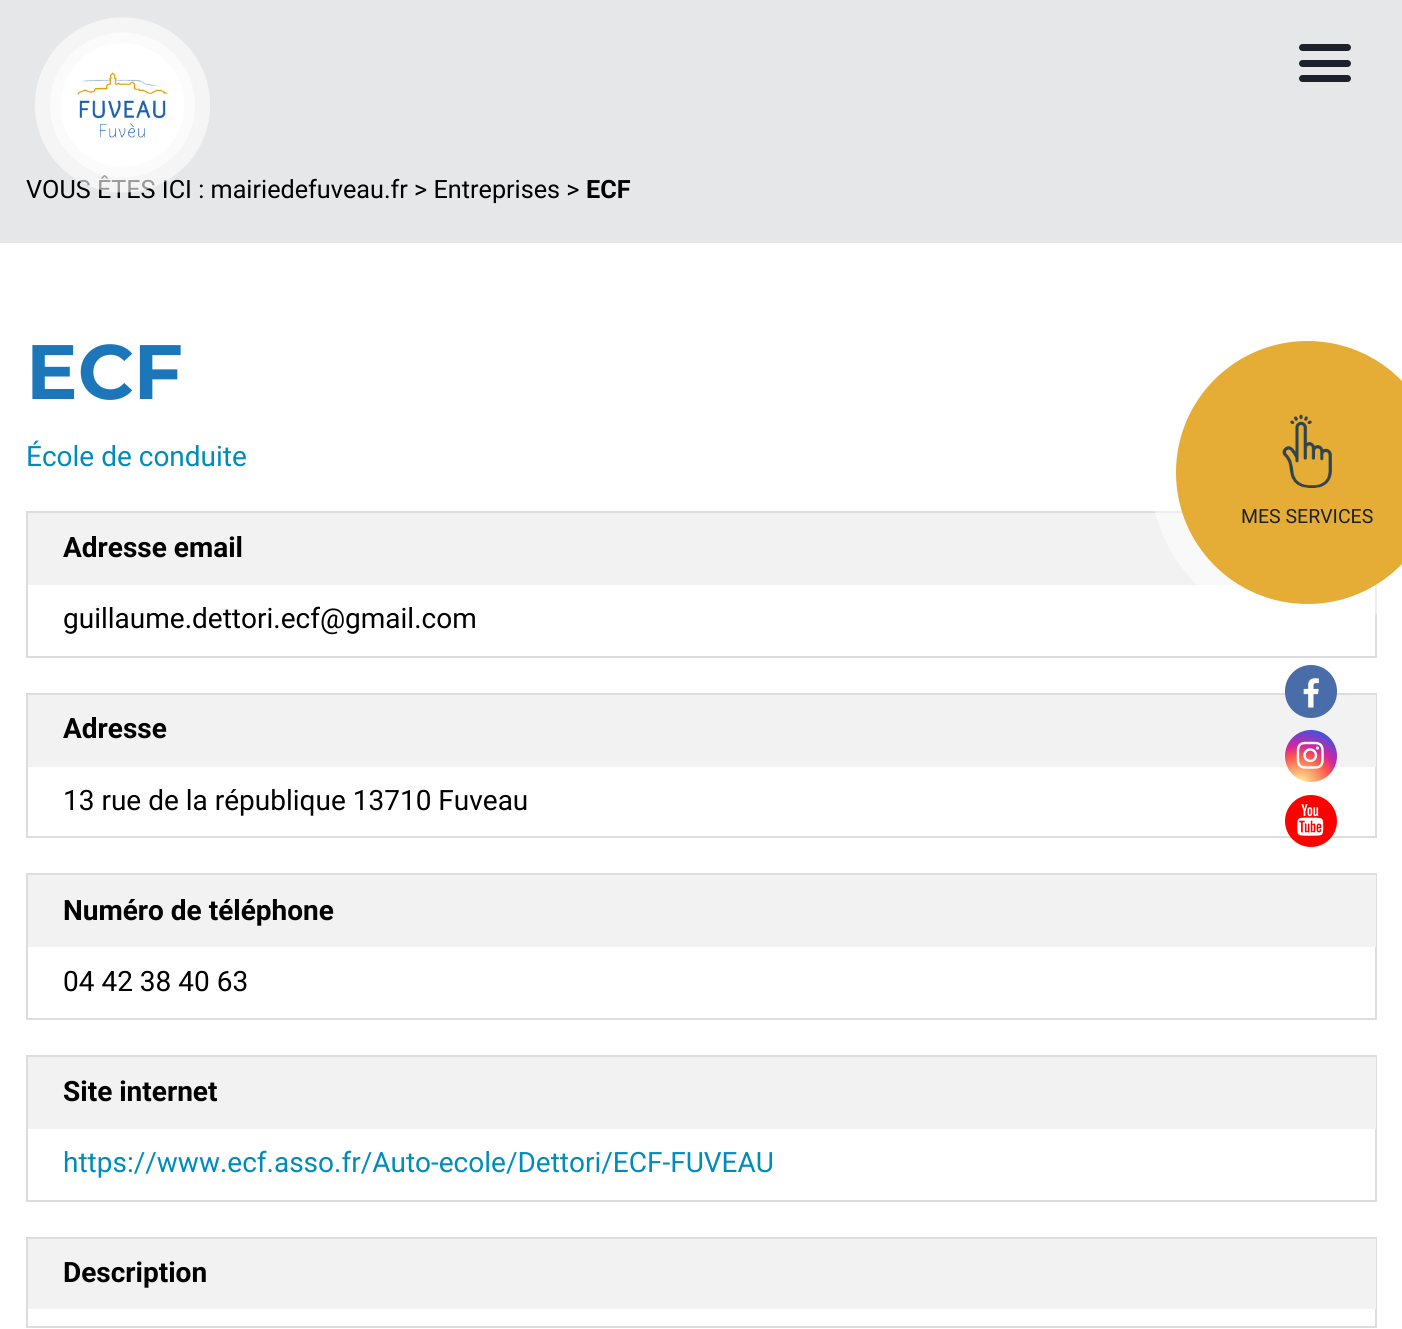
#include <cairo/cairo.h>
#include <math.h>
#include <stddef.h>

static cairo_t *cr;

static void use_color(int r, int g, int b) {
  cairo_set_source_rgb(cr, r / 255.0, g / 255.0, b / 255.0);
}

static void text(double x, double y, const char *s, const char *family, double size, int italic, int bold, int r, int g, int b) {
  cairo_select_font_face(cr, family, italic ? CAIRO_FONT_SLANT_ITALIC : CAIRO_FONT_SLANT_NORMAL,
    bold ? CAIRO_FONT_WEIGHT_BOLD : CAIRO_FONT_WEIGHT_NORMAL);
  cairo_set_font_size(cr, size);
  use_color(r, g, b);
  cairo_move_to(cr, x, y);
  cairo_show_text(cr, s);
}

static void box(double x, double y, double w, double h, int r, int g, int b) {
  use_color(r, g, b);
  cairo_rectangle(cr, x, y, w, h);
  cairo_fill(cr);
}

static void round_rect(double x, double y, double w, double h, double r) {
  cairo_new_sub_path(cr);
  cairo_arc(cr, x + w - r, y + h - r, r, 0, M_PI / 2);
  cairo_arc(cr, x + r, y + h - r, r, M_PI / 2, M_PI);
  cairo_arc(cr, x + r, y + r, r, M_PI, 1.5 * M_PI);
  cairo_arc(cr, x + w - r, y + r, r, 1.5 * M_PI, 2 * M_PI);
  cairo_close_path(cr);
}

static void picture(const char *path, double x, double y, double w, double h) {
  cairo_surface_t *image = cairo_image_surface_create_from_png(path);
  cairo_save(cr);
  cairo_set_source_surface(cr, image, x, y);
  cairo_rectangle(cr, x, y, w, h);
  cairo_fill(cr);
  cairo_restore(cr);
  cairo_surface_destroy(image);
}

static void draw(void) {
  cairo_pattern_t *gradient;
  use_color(255, 255, 255);
  cairo_paint(cr);
  box(0, 0, 1402, 243, 230, 231, 233);
  use_color(28, 33, 42);
  round_rect(1299, 44, 52, 7, 3.5);
  cairo_fill(cr);
  round_rect(1299, 60, 52, 7, 3.5);
  cairo_fill(cr);
  round_rect(1299, 75, 52, 7, 3.5);
  cairo_fill(cr);
  cairo_rectangle(cr, 27, 512, 1349, 145);
  use_color(221, 221, 221);
  cairo_stroke(cr);
  box(28, 513, 1348, 72, 242, 242, 242);
  cairo_rectangle(cr, 27, 694, 1349, 143);
  use_color(221, 221, 221);
  cairo_stroke(cr);
  box(28, 695, 1348, 72, 242, 242, 242);
  cairo_rectangle(cr, 27, 874, 1349, 145);
  use_color(221, 221, 221);
  cairo_stroke(cr);
  box(28, 875, 1348, 72, 242, 242, 242);
  cairo_rectangle(cr, 27, 1056, 1349, 145);
  use_color(221, 221, 221);
  cairo_stroke(cr);
  box(28, 1057, 1348, 72, 242, 242, 242);
  cairo_rectangle(cr, 27, 1238, 1349, 89);
  use_color(221, 221, 221);
  cairo_stroke(cr);
  box(28, 1239, 1348, 70, 242, 242, 242);
  cairo_set_source_rgba(cr, 1, 1, 1, 0.5);
  cairo_arc(cr, 1307.5, 472.5, 157.5, 0, 2 * M_PI);
  cairo_fill(cr);
  use_color(229, 172, 54);
  cairo_arc(cr, 1307.5, 472.5, 131.5, 0, 2 * M_PI);
  cairo_fill(cr);
  picture("img_02.png", 1282, 414, 50, 74);
  use_color(73, 109, 168);
  round_rect(1285, 665, 52, 53, 26);
  cairo_fill(cr);
  picture("img_03.png", 1303, 678, 16, 30);
  gradient = cairo_pattern_create_radial(1300, 786, 0, 1300, 786, 67);
  cairo_pattern_add_color_stop_rgba(gradient, 0, 0.992, 0.957, 0.592, 1);
  cairo_pattern_add_color_stop_rgba(gradient, 0.05, 0.992, 0.957, 0.592, 1);
  cairo_pattern_add_color_stop_rgba(gradient, 0.45, 0.992, 0.349, 0.286, 1);
  cairo_pattern_add_color_stop_rgba(gradient, 0.6, 0.839, 0.141, 0.624, 1);
  cairo_pattern_add_color_stop_rgba(gradient, 0.9, 0.157, 0.353, 0.922, 1);
  cairo_set_source(cr, gradient);
  cairo_pattern_destroy(gradient);
  cairo_arc(cr, 1311, 756, 26, 0, 2 * M_PI);
  cairo_fill(cr);
  picture("img_04.png", 1296, 741, 28, 28);
  use_color(255, 0, 0);
  cairo_arc(cr, 1311, 821, 26, 0, 2 * M_PI);
  cairo_fill(cr);
  picture("img_05.png", 1297, 804, 27, 32);
  text(26, 198, "VOUS ÊTES ICI : mairiedefuveau.fr > Entreprises >", "Roboto", 25.2, 0, 0, 0, 0, 0);
  picture("img_01.png", 35, 17, 175, 176);
  text(586, 198, "ECF", "Roboto", 25.2, 0, 1, 0, 0, 0);
  text(26, 399, "ECF", "Montserrat", 77, 0, 1, 28, 119, 186);
  text(26, 466, "École de conduite", "Roboto", 28, 0, 0, 0, 140, 186);
  text(63, 557, "Adresse email", "Roboto", 28, 0, 1, 0, 0, 0);
  text(63, 628, "guillaume.dettori.ecf@gmail.com", "Roboto", 28, 0, 0, 0, 0, 0);
  text(63, 738, "Adresse", "Roboto", 28, 0, 1, 0, 0, 0);
  text(63, 810, "13 rue de la république 13710 Fuveau", "Roboto", 28, 0, 0, 0, 0, 0);
  text(63, 920, "Numéro de téléphone", "Roboto", 28, 0, 1, 0, 0, 0);
  text(63, 991, "04 42 38 40 63", "Roboto", 28, 0, 0, 0, 0, 0);
  text(63, 1101, "Site internet", "Roboto", 28, 0, 1, 0, 0, 0);
  text(63, 1172, "https://www.ecf.asso.fr/Auto-ecole/Dettori/ECF-FUVEAU", "Roboto", 28, 0, 0, 0, 140, 186);
  text(63, 1282, "Description", "Roboto", 28, 0, 1, 0, 0, 0);
  text(1241, 523, "MES SERVICES", "Roboto", 19.5, 0, 0, 28, 33, 42);
}

int main(void) {
  cairo_surface_t *surface = cairo_image_surface_create(CAIRO_FORMAT_RGB24, 1402, 1329);
  cr = cairo_create(surface);
  cairo_font_options_t *options = cairo_font_options_create();
  cairo_font_options_set_hint_metrics(options, CAIRO_HINT_METRICS_OFF);
  cairo_font_options_set_hint_style(options, CAIRO_HINT_STYLE_NONE);
  cairo_set_font_options(cr, options);
  cairo_set_miter_limit(cr, 4);
  draw();
  cairo_surface_write_to_png(surface, "out.png");
  cairo_font_options_destroy(options);
  cairo_destroy(cr);
  cairo_surface_destroy(surface);
  return 0;
}
